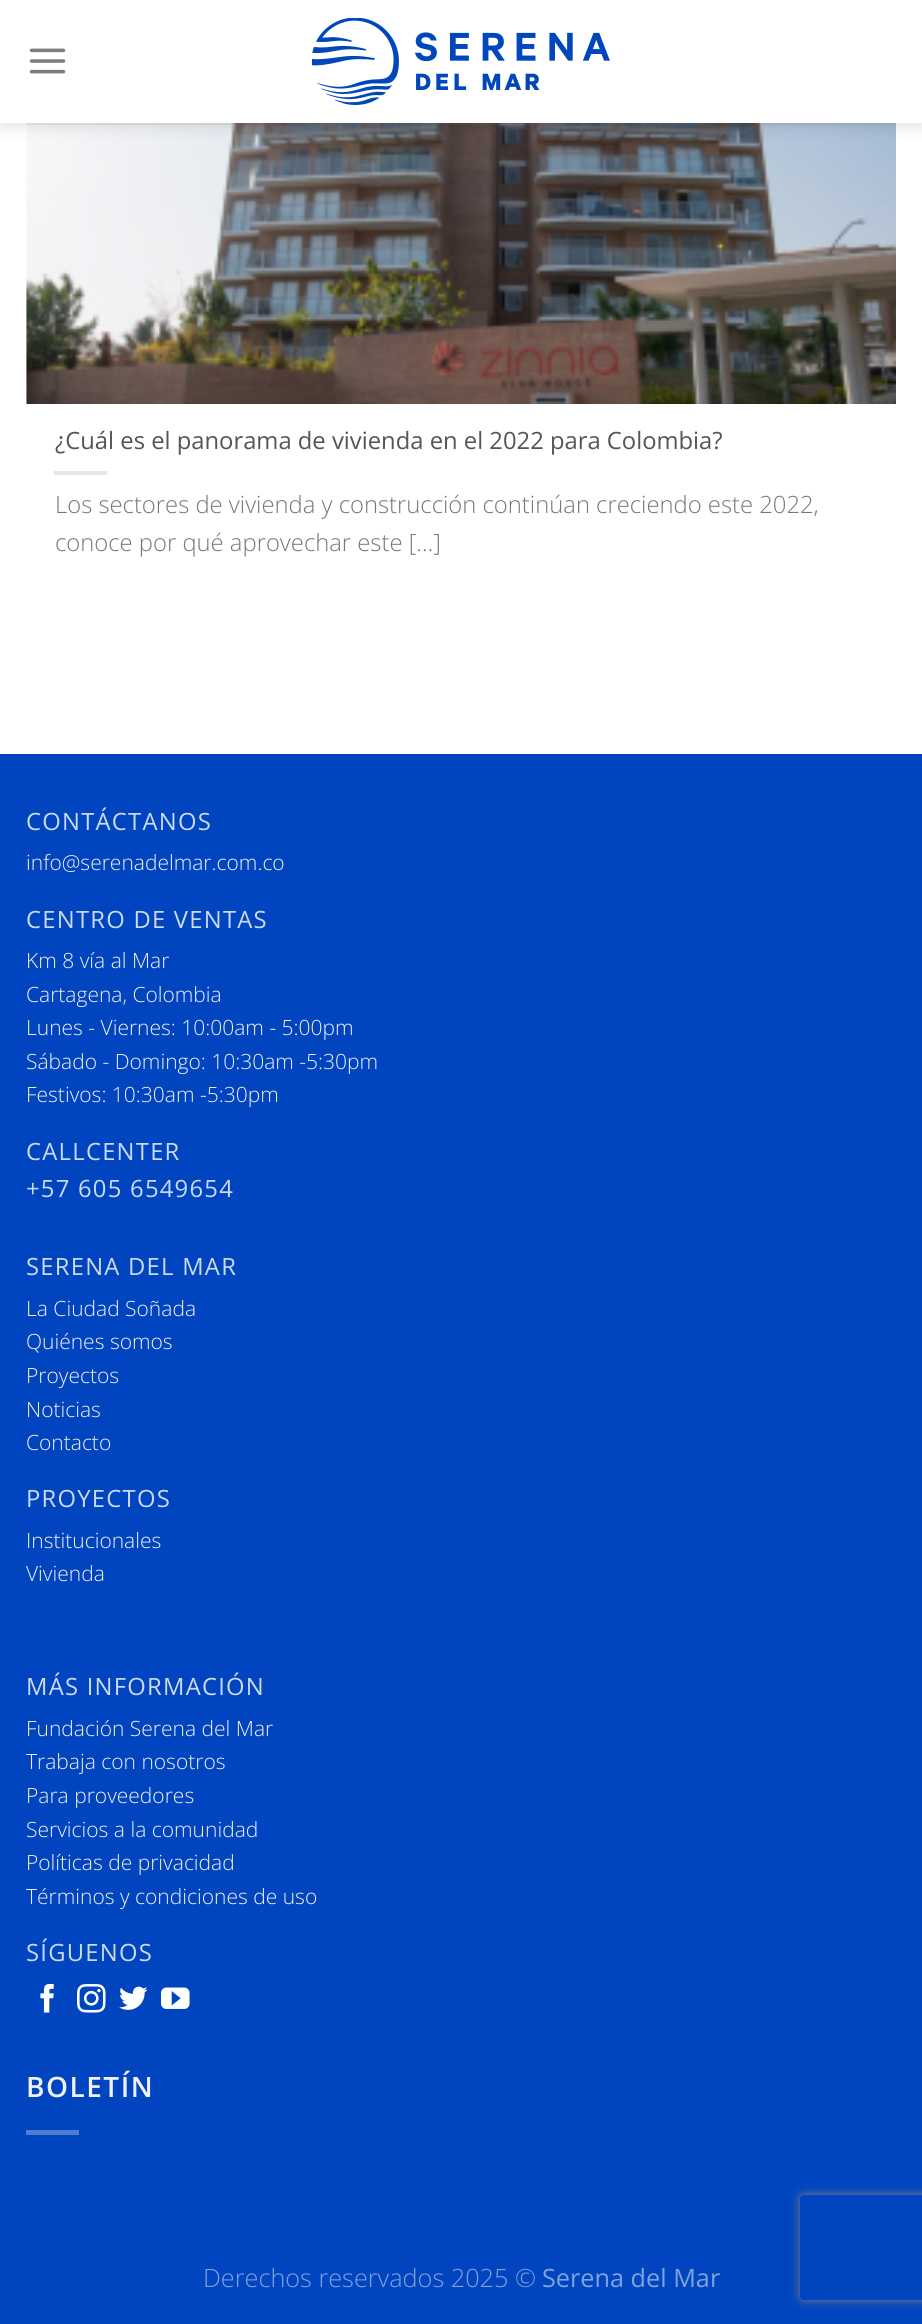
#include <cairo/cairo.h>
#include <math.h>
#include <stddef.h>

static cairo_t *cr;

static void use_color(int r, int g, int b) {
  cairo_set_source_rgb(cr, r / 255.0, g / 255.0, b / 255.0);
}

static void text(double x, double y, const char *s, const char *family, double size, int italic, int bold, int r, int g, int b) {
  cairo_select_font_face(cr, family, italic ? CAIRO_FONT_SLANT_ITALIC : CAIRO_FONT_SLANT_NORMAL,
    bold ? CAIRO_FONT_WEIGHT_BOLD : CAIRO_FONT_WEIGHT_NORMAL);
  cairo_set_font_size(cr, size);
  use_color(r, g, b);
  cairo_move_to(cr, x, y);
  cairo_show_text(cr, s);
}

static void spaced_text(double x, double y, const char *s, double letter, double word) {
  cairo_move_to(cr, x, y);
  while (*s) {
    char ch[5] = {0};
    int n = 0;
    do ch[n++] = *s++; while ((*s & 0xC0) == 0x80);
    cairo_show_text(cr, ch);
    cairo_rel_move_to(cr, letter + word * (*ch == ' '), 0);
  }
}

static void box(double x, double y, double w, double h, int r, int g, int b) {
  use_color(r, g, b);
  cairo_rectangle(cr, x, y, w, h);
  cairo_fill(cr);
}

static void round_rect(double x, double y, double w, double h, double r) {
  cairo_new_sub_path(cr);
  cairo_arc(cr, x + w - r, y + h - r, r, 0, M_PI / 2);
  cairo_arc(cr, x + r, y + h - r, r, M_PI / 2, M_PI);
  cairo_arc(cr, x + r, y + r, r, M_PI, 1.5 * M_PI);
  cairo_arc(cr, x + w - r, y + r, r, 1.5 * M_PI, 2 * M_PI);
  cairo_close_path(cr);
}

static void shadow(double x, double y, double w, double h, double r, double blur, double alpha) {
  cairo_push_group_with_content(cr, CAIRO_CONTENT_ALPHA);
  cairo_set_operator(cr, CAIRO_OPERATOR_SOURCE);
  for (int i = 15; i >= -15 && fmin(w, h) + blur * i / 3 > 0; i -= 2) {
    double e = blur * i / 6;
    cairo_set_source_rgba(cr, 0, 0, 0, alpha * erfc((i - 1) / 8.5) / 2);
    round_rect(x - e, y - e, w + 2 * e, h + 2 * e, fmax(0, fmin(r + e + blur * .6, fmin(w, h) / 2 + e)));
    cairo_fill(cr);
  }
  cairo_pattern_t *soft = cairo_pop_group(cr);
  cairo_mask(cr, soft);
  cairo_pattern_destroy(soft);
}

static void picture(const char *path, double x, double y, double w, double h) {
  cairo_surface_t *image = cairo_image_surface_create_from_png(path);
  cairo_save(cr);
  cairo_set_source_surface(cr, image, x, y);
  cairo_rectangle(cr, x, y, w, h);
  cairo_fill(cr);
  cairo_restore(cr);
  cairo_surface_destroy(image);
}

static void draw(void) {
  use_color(255, 255, 255);
  cairo_paint(cr);
  picture("img_03.png", 26, 123, 870, 281);
  use_color(0, 0, 0);
  shadow(2, 2, 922, 122, 0, 9, 0.15);
  box(0, 0, 922, 123, 255, 255, 255);
  picture("img_01.png", 29, 48, 37, 26);
  picture("img_02.png", 312, 18, 298, 87);
  cairo_set_source_rgba(cr, 0.467, 0.467, 0.467, 0.1);
  cairo_rectangle(cr, 26, 123, 870, 2);
  cairo_fill(cr);
  box(54, 471, 53, 4, 230, 230, 230);
  box(0, 756, 922, 1568, 0, 69, 191);
  box(0, 754, 922, 2, 0, 66, 181);
  picture("img_04.png", 40, 1984, 14, 29);
  picture("img_05.png", 77, 1984, 29, 29);
  picture("img_06.png", 119, 1986, 29, 24);
  picture("img_07.png", 161, 1987, 29, 22);
  box(26, 2130, 53, 5, 77, 125, 210);
  cairo_save(cr);
  cairo_set_fill_rule(cr, CAIRO_FILL_RULE_EVEN_ODD);
  cairo_new_path(cr);
  cairo_move_to(cr, 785, 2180);
  cairo_line_to(cr, 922, 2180);
  cairo_line_to(cr, 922, 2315);
  cairo_line_to(cr, 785, 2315);
  cairo_close_path(cr);
  cairo_move_to(cr, 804, 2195);
  cairo_line_to(cr, 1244, 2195);
  cairo_curve_to(cr, 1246, 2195, 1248, 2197, 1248, 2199);
  cairo_line_to(cr, 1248, 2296);
  cairo_curve_to(cr, 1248, 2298, 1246, 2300, 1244, 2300);
  cairo_line_to(cr, 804, 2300);
  cairo_curve_to(cr, 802, 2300, 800, 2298, 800, 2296);
  cairo_line_to(cr, 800, 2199);
  cairo_curve_to(cr, 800, 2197, 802, 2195, 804, 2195);
  cairo_close_path(cr);
  cairo_clip(cr);
  use_color(128, 128, 128);
  shadow(800, 2195, 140, 105, 4, 4.5, 1);
  cairo_restore(cr);
  text(55, 449, "¿Cuál es el panorama de vivienda en el 2022 para Colombia?", "Open Sans", 23.8, 0, 0, 85, 85, 85);
  text(55, 513, "Los sectores de vivienda y construcción continúan creciendo este 2022,", "Open Sans Light", 23.8, 0, 0, 119, 119, 119);
  text(55, 551, "conoce por qué aprovechar este [...]", "Open Sans Light", 23.8, 0, 0, 119, 119, 119);
  cairo_select_font_face(cr, "Open Sans", CAIRO_FONT_SLANT_NORMAL, CAIRO_FONT_WEIGHT_NORMAL);
  use_color(204, 218, 242);
  spaced_text(26, 830, "CONTÁCTANOS", 1.25, 0);
  text(26, 870, "info@serenadelmar.com.co", "Open Sans Light", 21, 0, 0, 241, 241, 241);
  cairo_select_font_face(cr, "Open Sans", CAIRO_FONT_SLANT_NORMAL, CAIRO_FONT_WEIGHT_NORMAL);
  cairo_set_font_size(cr, 23.8);
  use_color(204, 218, 242);
  spaced_text(26, 928, "CENTRO DE VENTAS", 1.25, 0);
  text(26, 968, "Km 8 vía al Mar", "Open Sans Light", 21, 0, 0, 241, 241, 241);
  text(26, 1002, "Cartagena, Colombia", "Open Sans Light", 21, 0, 0, 241, 241, 241);
  text(26, 1035, "Lunes - Viernes: 10:00am - 5:00pm", "Open Sans Light", 21, 0, 0, 241, 241, 241);
  text(26, 1069, "Sábado - Domingo: 10:30am -5:30pm", "Open Sans Light", 21, 0, 0, 241, 241, 241);
  text(26, 1102, "Festivos: 10:30am -5:30pm", "Open Sans Light", 21, 0, 0, 241, 241, 241);
  cairo_select_font_face(cr, "Open Sans", CAIRO_FONT_SLANT_NORMAL, CAIRO_FONT_WEIGHT_NORMAL);
  cairo_set_font_size(cr, 23.8);
  use_color(204, 218, 242);
  spaced_text(26, 1160, "CALLCENTER", 1.25, 0);
  spaced_text(26, 1197, "+57 605 6549654", 1.25, 0);
  spaced_text(26, 1275, "SERENA DEL MAR", 1.25, 0);
  text(26, 1316, "La Ciudad Soñada", "Open Sans Light", 21, 0, 0, 241, 241, 241);
  text(26, 1349, "Quiénes somos", "Open Sans Light", 21, 0, 0, 241, 241, 241);
  text(26, 1383, "Proyectos", "Open Sans Light", 21, 0, 0, 241, 241, 241);
  text(26, 1417, "Noticias", "Open Sans Light", 21, 0, 0, 241, 241, 241);
  text(26, 1450, "Contacto", "Open Sans Light", 21, 0, 0, 241, 241, 241);
  cairo_select_font_face(cr, "Open Sans", CAIRO_FONT_SLANT_NORMAL, CAIRO_FONT_WEIGHT_NORMAL);
  cairo_set_font_size(cr, 23.8);
  use_color(204, 218, 242);
  spaced_text(26, 1507, "PROYECTOS", 1.25, 0);
  text(26, 1548, "Institucionales", "Open Sans Light", 21, 0, 0, 241, 241, 241);
  text(26, 1581, "Vivienda", "Open Sans Light", 21, 0, 0, 241, 241, 241);
  cairo_select_font_face(cr, "Open Sans", CAIRO_FONT_SLANT_NORMAL, CAIRO_FONT_WEIGHT_NORMAL);
  cairo_set_font_size(cr, 23.8);
  use_color(204, 218, 242);
  spaced_text(26, 1695, "MÁS INFORMACIÓN", 1.25, 0);
  text(26, 1736, "Fundación Serena del Mar", "Open Sans Light", 21, 0, 0, 241, 241, 241);
  text(26, 1769, "Trabaja con nosotros", "Open Sans Light", 21, 0, 0, 241, 241, 241);
  text(26, 1803, "Para proveedores", "Open Sans Light", 21, 0, 0, 241, 241, 241);
  text(26, 1837, "Servicios a la comunidad", "Open Sans Light", 21, 0, 0, 241, 241, 241);
  text(26, 1870, "Políticas de privacidad", "Open Sans Light", 21, 0, 0, 241, 241, 241);
  text(26, 1904, "Términos y condiciones de uso", "Open Sans Light", 21, 0, 0, 241, 241, 241);
  cairo_select_font_face(cr, "Open Sans", CAIRO_FONT_SLANT_NORMAL, CAIRO_FONT_WEIGHT_NORMAL);
  cairo_set_font_size(cr, 23.8);
  use_color(204, 218, 242);
  spaced_text(26, 1961, "SÍGUENOS", 1.25, 0);
  cairo_select_font_face(cr, "Open Sans SemiBold", CAIRO_FONT_SLANT_NORMAL, CAIRO_FONT_WEIGHT_NORMAL);
  cairo_set_font_size(cr, 28);
  use_color(241, 241, 241);
  spaced_text(26, 2097, "BOLETÍN", 1.5, 0);
  text(203, 2287, "Derechos reservados 2025 ©", "Open Sans Light", 25.25, 0, 0, 128, 162, 223);
  text(542, 2287, "Serena del Mar", "Open Sans", 25.25, 0, 0, 128, 162, 223);
}

int main(void) {
  cairo_surface_t *surface = cairo_image_surface_create(CAIRO_FORMAT_RGB24, 922, 2324);
  cr = cairo_create(surface);
  cairo_font_options_t *options = cairo_font_options_create();
  cairo_font_options_set_hint_metrics(options, CAIRO_HINT_METRICS_OFF);
  cairo_font_options_set_hint_style(options, CAIRO_HINT_STYLE_NONE);
  cairo_set_font_options(cr, options);
  cairo_set_miter_limit(cr, 4);
  draw();
  cairo_surface_write_to_png(surface, "out.png");
  cairo_font_options_destroy(options);
  cairo_destroy(cr);
  cairo_surface_destroy(surface);
  return 0;
}
